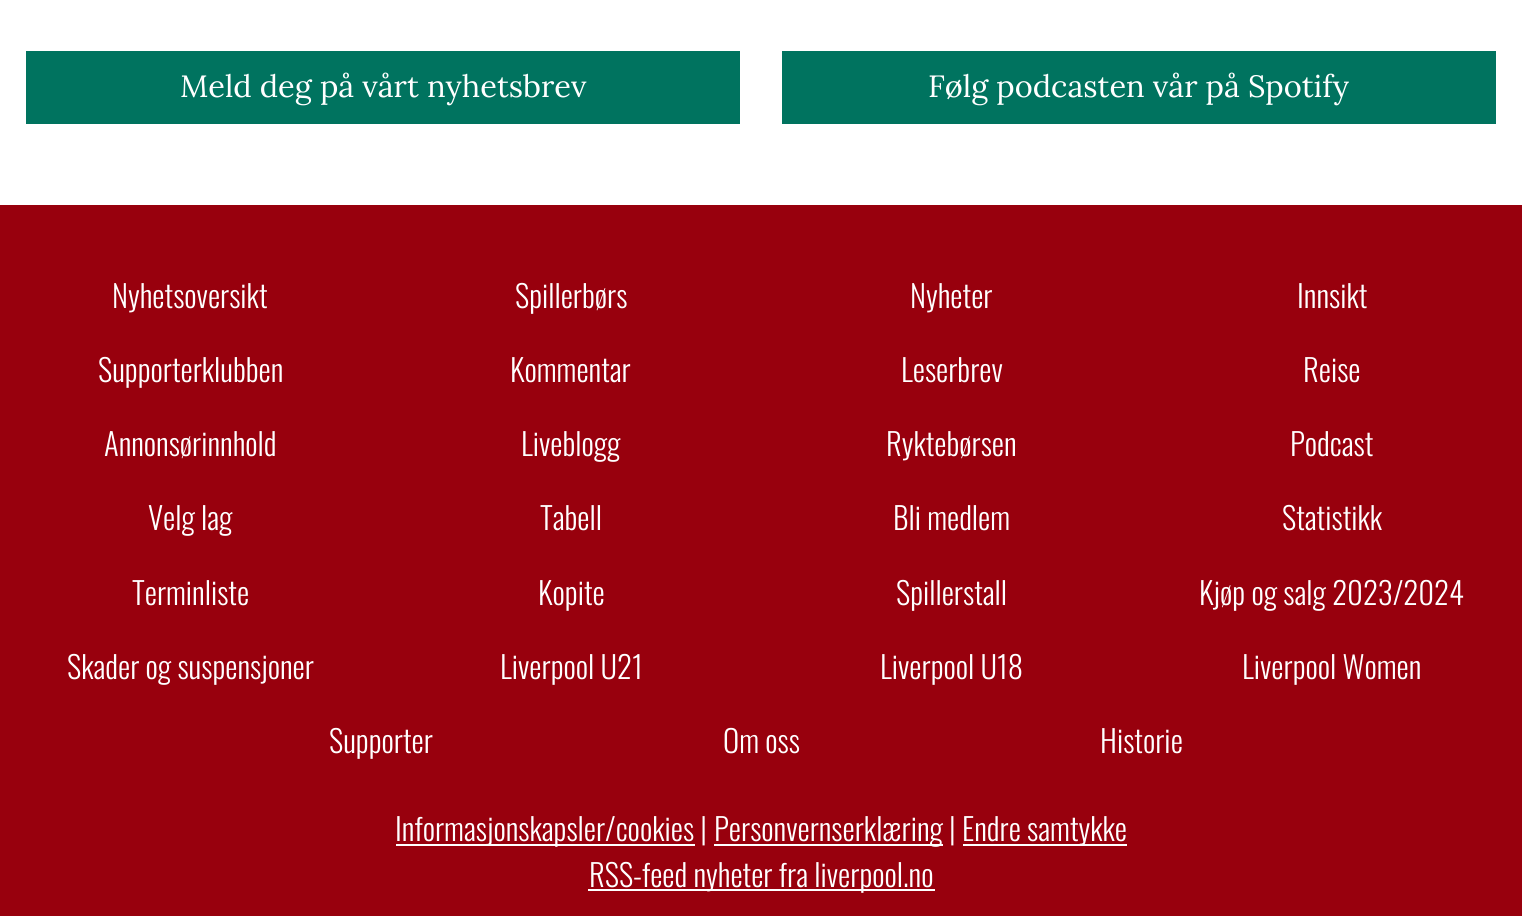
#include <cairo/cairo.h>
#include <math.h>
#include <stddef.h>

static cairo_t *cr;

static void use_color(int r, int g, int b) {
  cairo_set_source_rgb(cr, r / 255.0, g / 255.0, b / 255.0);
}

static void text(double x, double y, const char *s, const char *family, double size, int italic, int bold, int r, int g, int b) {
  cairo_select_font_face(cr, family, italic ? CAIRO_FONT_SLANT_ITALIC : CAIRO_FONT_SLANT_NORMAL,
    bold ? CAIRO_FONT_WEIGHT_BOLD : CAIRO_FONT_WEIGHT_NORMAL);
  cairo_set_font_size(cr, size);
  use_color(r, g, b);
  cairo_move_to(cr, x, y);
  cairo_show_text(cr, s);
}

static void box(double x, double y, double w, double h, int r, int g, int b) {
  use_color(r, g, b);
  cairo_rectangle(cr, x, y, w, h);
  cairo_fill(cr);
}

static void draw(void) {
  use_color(255, 255, 255);
  cairo_paint(cr);
  box(26, 51, 714, 73, 0, 115, 95);
  box(782, 51, 714, 73, 0, 115, 95);
  box(0, 205, 1522, 711, 152, 0, 13);
  box(396, 844, 299, 2, 255, 255, 255);
  box(714, 844, 229, 2, 255, 255, 255);
  box(963, 844, 164, 2, 255, 255, 255);
  box(588, 889, 347, 2, 255, 255, 255);
  text(180, 97, "Meld deg på vårt nyhetsbrev", "Lora", 30.75, 0, 0, 255, 255, 255);
  text(928, 97, "Følg podcasten vår på Spotify", "Lora", 30.75, 0, 0, 255, 255, 255);
  text(112, 308, "Nyhetsoversikt", "Oswald Light", 30.75, 0, 0, 255, 255, 255);
  text(515, 308, "Spillerbørs", "Oswald Light", 30.75, 0, 0, 255, 255, 255);
  text(910, 308, "Nyheter", "Oswald Light", 30.75, 0, 0, 255, 255, 255);
  text(1297, 308, "Innsikt", "Oswald Light", 30.75, 0, 0, 255, 255, 255);
  text(98, 382, "Supporterklubben", "Oswald Light", 30.75, 0, 0, 255, 255, 255);
  text(510, 382, "Kommentar", "Oswald Light", 30.75, 0, 0, 255, 255, 255);
  text(901, 382, "Leserbrev", "Oswald Light", 30.75, 0, 0, 255, 255, 255);
  text(1303, 382, "Reise", "Oswald Light", 30.75, 0, 0, 255, 255, 255);
  text(104, 456, "Annonsørinnhold", "Oswald Light", 30.75, 0, 0, 255, 255, 255);
  text(521, 456, "Liveblogg", "Oswald Light", 30.75, 0, 0, 255, 255, 255);
  text(886, 456, "Ryktebørsen", "Oswald Light", 30.75, 0, 0, 255, 255, 255);
  text(1290, 456, "Podcast", "Oswald Light", 30.75, 0, 0, 255, 255, 255);
  text(148, 530, "Velg lag", "Oswald Light", 30.75, 0, 0, 255, 255, 255);
  text(540, 530, "Tabell", "Oswald Light", 30.75, 0, 0, 255, 255, 255);
  text(893, 530, "Bli medlem", "Oswald Light", 30.75, 0, 0, 255, 255, 255);
  text(1282, 530, "Statistikk", "Oswald Light", 30.75, 0, 0, 255, 255, 255);
  text(132, 605, "Terminliste", "Oswald Light", 30.75, 0, 0, 255, 255, 255);
  text(538, 605, "Kopite", "Oswald Light", 30.75, 0, 0, 255, 255, 255);
  text(896, 605, "Spillerstall", "Oswald Light", 30.75, 0, 0, 255, 255, 255);
  text(1199, 605, "Kjøp og salg 2023/2024", "Oswald Light", 30.75, 0, 0, 255, 255, 255);
  text(67, 679, "Skader og suspensjoner", "Oswald Light", 30.75, 0, 0, 255, 255, 255);
  text(500, 679, "Liverpool U21", "Oswald Light", 30.75, 0, 0, 255, 255, 255);
  text(880, 679, "Liverpool U18", "Oswald Light", 30.75, 0, 0, 255, 255, 255);
  text(1242, 679, "Liverpool Women", "Oswald Light", 30.75, 0, 0, 255, 255, 255);
  text(329, 753, "Supporter", "Oswald Light", 30.75, 0, 0, 255, 255, 255);
  text(723, 753, "Om oss", "Oswald Light", 30.75, 0, 0, 255, 255, 255);
  text(1100, 753, "Historie", "Oswald Light", 30.75, 0, 0, 255, 255, 255);
  text(395, 841, "Informasjonskapsler/cookies |", "Oswald Light", 30.75, 0, 0, 255, 255, 255);
  text(714, 841, "Personvernserklæring |", "Oswald Light", 30.75, 0, 0, 255, 255, 255);
  text(962, 841, "Endre samtykke", "Oswald Light", 30.75, 0, 0, 255, 255, 255);
  text(589, 887, "RSS-feed nyheter fra liverpool.no", "Oswald Light", 30.75, 0, 0, 255, 255, 255);
}

int main(void) {
  cairo_surface_t *surface = cairo_image_surface_create(CAIRO_FORMAT_RGB24, 1522, 916);
  cr = cairo_create(surface);
  cairo_font_options_t *options = cairo_font_options_create();
  cairo_font_options_set_hint_metrics(options, CAIRO_HINT_METRICS_OFF);
  cairo_font_options_set_hint_style(options, CAIRO_HINT_STYLE_NONE);
  cairo_set_font_options(cr, options);
  cairo_set_miter_limit(cr, 4);
  draw();
  cairo_surface_write_to_png(surface, "out.png");
  cairo_font_options_destroy(options);
  cairo_destroy(cr);
  cairo_surface_destroy(surface);
  return 0;
}
